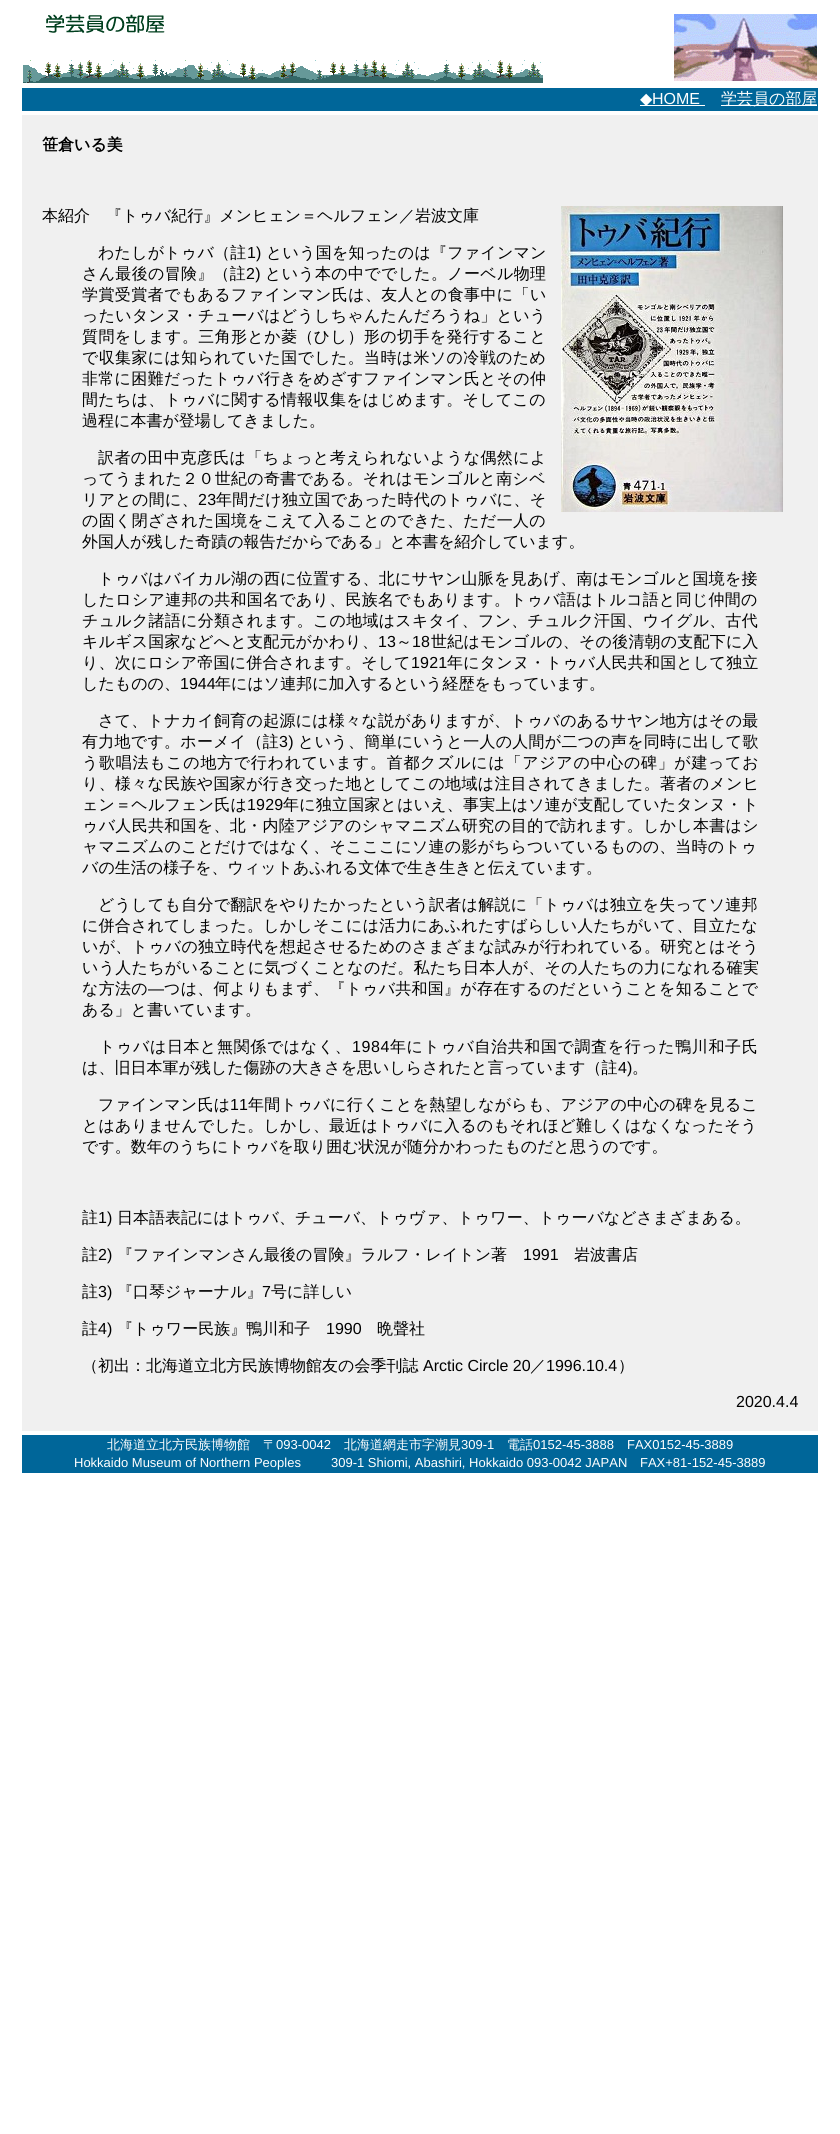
#include <cairo/cairo.h>
#include <math.h>
#include <stddef.h>

static cairo_t *cr;

static void use_color(int r, int g, int b) {
  cairo_set_source_rgb(cr, r / 255.0, g / 255.0, b / 255.0);
}

static void text(double x, double y, const char *s, const char *family, double size, int italic, int bold, int r, int g, int b) {
  cairo_select_font_face(cr, family, italic ? CAIRO_FONT_SLANT_ITALIC : CAIRO_FONT_SLANT_NORMAL,
    bold ? CAIRO_FONT_WEIGHT_BOLD : CAIRO_FONT_WEIGHT_NORMAL);
  cairo_set_font_size(cr, size);
  use_color(r, g, b);
  cairo_move_to(cr, x, y);
  cairo_show_text(cr, s);
}

static void spaced_text(double x, double y, const char *s, double letter, double word) {
  cairo_move_to(cr, x, y);
  while (*s) {
    char ch[5] = {0};
    int n = 0;
    do ch[n++] = *s++; while ((*s & 0xC0) == 0x80);
    cairo_show_text(cr, ch);
    cairo_rel_move_to(cr, letter + word * (*ch == ' '), 0);
  }
}

static void box(double x, double y, double w, double h, int r, int g, int b) {
  use_color(r, g, b);
  cairo_rectangle(cr, x, y, w, h);
  cairo_fill(cr);
}

static void picture(const char *path, double x, double y, double w, double h) {
  cairo_surface_t *image = cairo_image_surface_create_from_png(path);
  cairo_save(cr);
  cairo_set_source_surface(cr, image, x, y);
  cairo_rectangle(cr, x, y, w, h);
  cairo_fill(cr);
  cairo_restore(cr);
  cairo_surface_destroy(image);
}

static void draw(void) {
  use_color(255, 255, 255);
  cairo_paint(cr);
  picture("img_01.png", 46, 14, 119, 19);
  picture("img_02.png", 23, 60, 520, 23);
  picture("img_03.png", 674, 14, 143, 67);
  box(22, 88, 796, 23, 0, 102, 153);
  box(640, 105, 65, 1, 255, 255, 255);
  box(721, 105, 96, 1, 255, 255, 255);
  box(22, 115, 796, 1316, 240, 240, 240);
  picture("img_04.png", 561, 206, 222, 306);
  box(22, 1435, 796, 38, 0, 102, 153);
  text(640, 104, "◆", "DejaVu Sans", 16, 0, 0, 255, 255, 255);
  text(652, 104, "HOME", "Liberation Sans", 16, 0, 0, 255, 255, 255);
  text(721, 104, "学芸員の部屋", "WenQuanYi Zen Hei Medium", 16, 0, 0, 255, 255, 255);
  text(42, 150, "笹倉いる美", "WenQuanYi Zen Hei", 16, 0, 1, 0, 0, 0);
  text(42, 221, "本紹介　『トゥバ紀行』メンヒェン＝ヘルフェン／岩波文庫", "WenQuanYi Zen Hei Medium", 16, 0, 0, 0, 0, 0);
  spaced_text(98, 258, "わたしがトゥバ（註", 0.2, 0);
  cairo_select_font_face(cr, "Liberation Sans", CAIRO_FONT_SLANT_NORMAL, CAIRO_FONT_WEIGHT_NORMAL);
  spaced_text(247, 258, "1)", 0.2, 0);
  cairo_select_font_face(cr, "WenQuanYi Zen Hei Medium", CAIRO_FONT_SLANT_NORMAL, CAIRO_FONT_WEIGHT_NORMAL);
  spaced_text(266, 258, "という国を知ったのは『ファインマン", 0.2, 0);
  spaced_text(82, 279, "さん最後の冒険』（註", 0.3, 0);
  cairo_select_font_face(cr, "Liberation Sans", CAIRO_FONT_SLANT_NORMAL, CAIRO_FONT_WEIGHT_NORMAL);
  spaced_text(246, 279, "2)", 0.3, 0);
  cairo_select_font_face(cr, "WenQuanYi Zen Hei Medium", CAIRO_FONT_SLANT_NORMAL, CAIRO_FONT_WEIGHT_NORMAL);
  spaced_text(265, 279, "という本の中ででした。ノーベル物理", 0.3, 0);
  spaced_text(82, 300, "学賞受賞者でもあるファインマン氏は、友人との食事中に「い", 0.4, 0);
  spaced_text(82, 321, "ったいタンヌ・チューバはどうしちゃんたんだろうね」という", 0.25, 0);
  spaced_text(82, 342, "質問をします。三角形とか菱（ひし）形の切手を発行すること", 0.4, 0);
  spaced_text(82, 363, "で収集家には知られていた国でした。当時は米ソの冷戦のため", 0.35, 0);
  spaced_text(82, 384, "非常に困難だったトゥバ行きをめざすファインマン氏とその仲", 0.3, 0);
  spaced_text(82, 405, "間たちは、トゥバに関する情報収集をはじめます。そしてこの", 0.3, 0);
  text(82, 426, "過程に本書が登場してきました。", "WenQuanYi Zen Hei Medium", 16, 0, 0, 0, 0, 0);
  spaced_text(98, 463, "訳者の田中克彦氏は「ちょっと考えられないような偶然によ", 0.4, 0);
  spaced_text(82, 484, "ってうまれた２０世紀の奇書である。それはモンゴルと南シベ", 0.3, 0);
  spaced_text(82, 505, "リアとの間に、", 0.3, 0);
  cairo_select_font_face(cr, "Liberation Sans", CAIRO_FONT_SLANT_NORMAL, CAIRO_FONT_WEIGHT_NORMAL);
  spaced_text(198, 505, "23", 0.3, 0);
  cairo_select_font_face(cr, "WenQuanYi Zen Hei Medium", CAIRO_FONT_SLANT_NORMAL, CAIRO_FONT_WEIGHT_NORMAL);
  spaced_text(216, 505, "年間だけ独立国であった時代のトゥバに、そ", 0.3, 0);
  spaced_text(82, 526, "の固く閉ざされた国境をこえて入ることのできた、ただ一人の", 0.3, 0);
  text(82, 547, "外国人が残した奇蹟の報告だからである」と本書を紹介しています。", "WenQuanYi Zen Hei Medium", 16, 0, 0, 0, 0, 0);
  spaced_text(98, 584, "トゥバはバイカル湖の西に位置する、北にサヤン山脈を見あげ、南はモンゴルと国境を接", 0.25, 0);
  spaced_text(82, 605, "したロシア連邦の共和国名であり、民族名でもあります。トゥバ語はトルコ語と同じ仲間の", 0.25, 0);
  spaced_text(82, 626, "チュルク諸語に分類されます。この地域はスキタイ、フン、チュルク汗国、ウイグル、古代", 0.25, 0);
  spaced_text(82, 647, "キルギス国家などへと支配元がかわり、", 0.2, 0);
  cairo_select_font_face(cr, "Liberation Sans", CAIRO_FONT_SLANT_NORMAL, CAIRO_FONT_WEIGHT_NORMAL);
  spaced_text(378, 647, "13", 0.2, 0);
  cairo_select_font_face(cr, "WenQuanYi Zen Hei Medium", CAIRO_FONT_SLANT_NORMAL, CAIRO_FONT_WEIGHT_NORMAL);
  spaced_text(396, 647, "～", 0.2, 0);
  cairo_select_font_face(cr, "Liberation Sans", CAIRO_FONT_SLANT_NORMAL, CAIRO_FONT_WEIGHT_NORMAL);
  spaced_text(412, 647, "18", 0.2, 0);
  cairo_select_font_face(cr, "WenQuanYi Zen Hei Medium", CAIRO_FONT_SLANT_NORMAL, CAIRO_FONT_WEIGHT_NORMAL);
  spaced_text(431, 647, "世紀はモンゴルの、その後清朝の支配下に入", 0.2, 0);
  spaced_text(82, 668, "り、次にロシア帝国に併合されます。そして", 0.2, 0);
  cairo_select_font_face(cr, "Liberation Sans", CAIRO_FONT_SLANT_NORMAL, CAIRO_FONT_WEIGHT_NORMAL);
  spaced_text(411, 668, "1921", 0.2, 0);
  cairo_select_font_face(cr, "WenQuanYi Zen Hei Medium", CAIRO_FONT_SLANT_NORMAL, CAIRO_FONT_WEIGHT_NORMAL);
  spaced_text(447, 668, "年にタンヌ・トゥバ人民共和国として独立", 0.2, 0);
  text(82, 689, "したものの、", "WenQuanYi Zen Hei Medium", 16, 0, 0, 0, 0, 0);
  text(180, 689, "1944", "Liberation Sans", 16, 0, 0, 0, 0, 0);
  text(215, 689, "年にはソ連邦に加入するという経歴をもっています。", "WenQuanYi Zen Hei Medium", 16, 0, 0, 0, 0, 0);
  spaced_text(98, 726, "さて、トナカイ飼育の起源には様々な説がありますが、トゥバのあるサヤン地方はその最", 0.25, 0);
  spaced_text(82, 747, "有力地です。ホーメイ（註", 0.25, 0);
  cairo_select_font_face(cr, "Liberation Sans", CAIRO_FONT_SLANT_NORMAL, CAIRO_FONT_WEIGHT_NORMAL);
  spaced_text(279, 747, "3)", 0.25, 0);
  cairo_select_font_face(cr, "WenQuanYi Zen Hei Medium", CAIRO_FONT_SLANT_NORMAL, CAIRO_FONT_WEIGHT_NORMAL);
  spaced_text(298, 747, "という、簡単にいうと一人の人間が二つの声を同時に出して歌", 0.25, 0);
  spaced_text(82, 768, "う歌唱法もこの地方で行われています。首都クズルには「アジアの中心の碑」が建ってお", 0.7, 0);
  spaced_text(82, 789, "り、様々な民族や国家が行き交った地としてこの地域は注目されてきました。著者のメンヒ", 0.3, 0);
  spaced_text(82, 810, "ェン＝ヘルフェン氏は", 0.2, 0);
  cairo_select_font_face(cr, "Liberation Sans", CAIRO_FONT_SLANT_NORMAL, CAIRO_FONT_WEIGHT_NORMAL);
  spaced_text(247, 810, "1929", 0.2, 0);
  cairo_select_font_face(cr, "WenQuanYi Zen Hei Medium", CAIRO_FONT_SLANT_NORMAL, CAIRO_FONT_WEIGHT_NORMAL);
  spaced_text(283, 810, "年に独立国家とはいえ、事実上はソ連が支配していたタンヌ・ト", 0.2, 0);
  spaced_text(82, 831, "ゥバ人民共和国を、北・内陸アジアのシャマニズム研究の目的で訪れます。しかし本書はシ", 0.3, 0);
  spaced_text(82, 852, "ャマニズムのことだけではなく、そこここにソ連の影がちらついているものの、当時のトゥ", 0.15, 0);
  text(82, 873, "バの生活の様子を、ウィットあふれる文体で生き生きと伝えています。", "WenQuanYi Zen Hei Medium", 16, 0, 0, 0, 0, 0);
  spaced_text(98, 910, "どうしても自分で翻訳をやりたかったという訳者は解説に「トゥバは独立を失ってソ連邦", 0.25, 0);
  spaced_text(82, 931, "に併合されてしまった。しかしそこには活力にあふれたすばらしい人たちがいて、目立たな", 0.2, 0);
  spaced_text(82, 952, "いが、トゥバの独立時代を想起させるためのさまざまな試みが行われている。研究とはそう", 0.25, 0);
  spaced_text(82, 973, "いう人たちがいることに気づくことなのだ。私たち日本人が、その人たちの力になれる確実", 0.25, 0);
  spaced_text(82, 994, "な方法の", 0.25, 0);
  cairo_select_font_face(cr, "Liberation Sans", CAIRO_FONT_SLANT_NORMAL, CAIRO_FONT_WEIGHT_NORMAL);
  spaced_text(148, 994, "―", 0.25, 0);
  cairo_select_font_face(cr, "WenQuanYi Zen Hei Medium", CAIRO_FONT_SLANT_NORMAL, CAIRO_FONT_WEIGHT_NORMAL);
  spaced_text(164, 994, "つは、何よりもまず、『トゥバ共和国』が存在するのだということを知ることで", 0.25, 0);
  text(82, 1015, "ある」と書いています。", "WenQuanYi Zen Hei Medium", 16, 0, 0, 0, 0, 0);
  spaced_text(99, 1052, "トゥバは日本と無関係ではなく、", 0.6, 0);
  cairo_select_font_face(cr, "Liberation Sans", CAIRO_FONT_SLANT_NORMAL, CAIRO_FONT_WEIGHT_NORMAL);
  spaced_text(352, 1052, "1984", 0.6, 0);
  cairo_select_font_face(cr, "WenQuanYi Zen Hei Medium", CAIRO_FONT_SLANT_NORMAL, CAIRO_FONT_WEIGHT_NORMAL);
  spaced_text(390, 1052, "年にトゥバ自治共和国で調査を行った鴨川和子氏", 0.6, 0);
  text(82, 1073, "は、旧日本軍が残した傷跡の大きさを思いしらされたと言っています（註", "WenQuanYi Zen Hei Medium", 16, 0, 0, 0, 0, 0);
  text(618, 1073, "4)", "Liberation Sans", 16, 0, 0, 0, 0, 0);
  text(632, 1073, "。", "WenQuanYi Zen Hei Medium", 16, 0, 0, 0, 0, 0);
  spaced_text(98, 1110, "ファインマン氏は", 0.2, 0);
  cairo_select_font_face(cr, "Liberation Sans", CAIRO_FONT_SLANT_NORMAL, CAIRO_FONT_WEIGHT_NORMAL);
  spaced_text(230, 1110, "11", 0.2, 0);
  cairo_select_font_face(cr, "WenQuanYi Zen Hei Medium", CAIRO_FONT_SLANT_NORMAL, CAIRO_FONT_WEIGHT_NORMAL);
  spaced_text(248, 1110, "年間トゥバに行くことを熱望しながらも、アジアの中心の碑を見るこ", 0.2, 0);
  spaced_text(82, 1131, "とはありませんでした。しかし、最近はトゥバに入るのもそれほど難しくはなくなったそう", 0.15, 0);
  text(82, 1152, "です。数年のうちにトゥバを取り囲む状況が随分かわったものだと思うのです。", "WenQuanYi Zen Hei Medium", 16, 0, 0, 0, 0, 0);
  text(82, 1223, "註", "WenQuanYi Zen Hei Medium", 16, 0, 0, 0, 0, 0);
  text(98, 1223, "1)", "Liberation Sans", 16, 0, 0, 0, 0, 0);
  text(117, 1223, "日本語表記にはトゥバ、チューバ、トゥヴァ、トゥワー、トゥーバなどさまざまある。", "WenQuanYi Zen Hei Medium", 16, 0, 0, 0, 0, 0);
  text(82, 1260, "註", "WenQuanYi Zen Hei Medium", 16, 0, 0, 0, 0, 0);
  text(98, 1260, "2)", "Liberation Sans", 16, 0, 0, 0, 0, 0);
  text(117, 1260, "『ファインマンさん最後の冒険』ラルフ・レイトン著", "WenQuanYi Zen Hei Medium", 16, 0, 0, 0, 0, 0);
  text(523, 1260, "1991", "Liberation Sans", 16, 0, 0, 0, 0, 0);
  text(574, 1260, "岩波書店", "WenQuanYi Zen Hei Medium", 16, 0, 0, 0, 0, 0);
  text(82, 1297, "註", "WenQuanYi Zen Hei Medium", 16, 0, 0, 0, 0, 0);
  text(98, 1297, "3)", "Liberation Sans", 16, 0, 0, 0, 0, 0);
  text(117, 1297, "『口琴ジャーナル』", "WenQuanYi Zen Hei Medium", 16, 0, 0, 0, 0, 0);
  text(262, 1297, "7", "Liberation Sans", 16, 0, 0, 0, 0, 0);
  text(271, 1297, "号に詳しい", "WenQuanYi Zen Hei Medium", 16, 0, 0, 0, 0, 0);
  text(82, 1334, "註", "WenQuanYi Zen Hei Medium", 16, 0, 0, 0, 0, 0);
  text(98, 1334, "4)", "Liberation Sans", 16, 0, 0, 0, 0, 0);
  text(117, 1334, "『トゥワー民族』鴨川和子", "WenQuanYi Zen Hei Medium", 16, 0, 0, 0, 0, 0);
  text(326, 1334, "1990", "Liberation Sans", 16, 0, 0, 0, 0, 0);
  text(377, 1334, "晩聲社", "WenQuanYi Zen Hei Medium", 16, 0, 0, 0, 0, 0);
  text(82, 1371, "（初出：北海道立北方民族博物館友の会季刊誌", "WenQuanYi Zen Hei Medium", 16, 0, 0, 0, 0, 0);
  text(423, 1371, "Arctic Circle 20", "Liberation Sans", 16, 0, 0, 0, 0, 0);
  text(530, 1371, "／", "WenQuanYi Zen Hei Medium", 16, 0, 0, 0, 0, 0);
  text(546, 1371, "1996.10.4", "Liberation Sans", 16, 0, 0, 0, 0, 0);
  text(618, 1371, "）", "WenQuanYi Zen Hei Medium", 16, 0, 0, 0, 0, 0);
  text(736, 1407, "2020.4.4", "Liberation Sans", 16, 0, 0, 0, 0, 0);
  text(107, 1449, "北海道立北方民族博物館　〒", "WenQuanYi Zen Hei Medium", 13, 0, 0, 255, 255, 255);
  text(276, 1449, "093-0042", "Liberation Sans", 13, 0, 0, 255, 255, 255);
  text(344, 1449, "北海道網走市字潮見", "WenQuanYi Zen Hei Medium", 13, 0, 0, 255, 255, 255);
  text(461, 1449, "309-1", "Liberation Sans", 13, 0, 0, 255, 255, 255);
  text(507, 1449, "電話", "WenQuanYi Zen Hei Medium", 13, 0, 0, 255, 255, 255);
  text(533, 1449, "0152-45-3888", "Liberation Sans", 13, 0, 0, 255, 255, 255);
  text(627, 1449, "FAX0152-45-3889", "Liberation Sans", 13, 0, 0, 255, 255, 255);
  text(74, 1467, "Hokkaido Museum of Northern Peoples", "Liberation Sans", 13, 0, 0, 255, 255, 255);
  text(331, 1467, "309-1 Shiomi, Abashiri, Hokkaido 093-0042 JAPAN", "Liberation Sans", 13, 0, 0, 255, 255, 255);
  text(640, 1467, "FAX+81-152-45-3889", "Liberation Sans", 13, 0, 0, 255, 255, 255);
}

int main(void) {
  cairo_surface_t *surface = cairo_image_surface_create(CAIRO_FORMAT_RGB24, 840, 2134);
  cr = cairo_create(surface);
  cairo_font_options_t *options = cairo_font_options_create();
  cairo_font_options_set_hint_metrics(options, CAIRO_HINT_METRICS_OFF);
  cairo_font_options_set_hint_style(options, CAIRO_HINT_STYLE_NONE);
  cairo_set_font_options(cr, options);
  cairo_set_miter_limit(cr, 4);
  draw();
  cairo_surface_write_to_png(surface, "out.png");
  cairo_font_options_destroy(options);
  cairo_destroy(cr);
  cairo_surface_destroy(surface);
  return 0;
}
